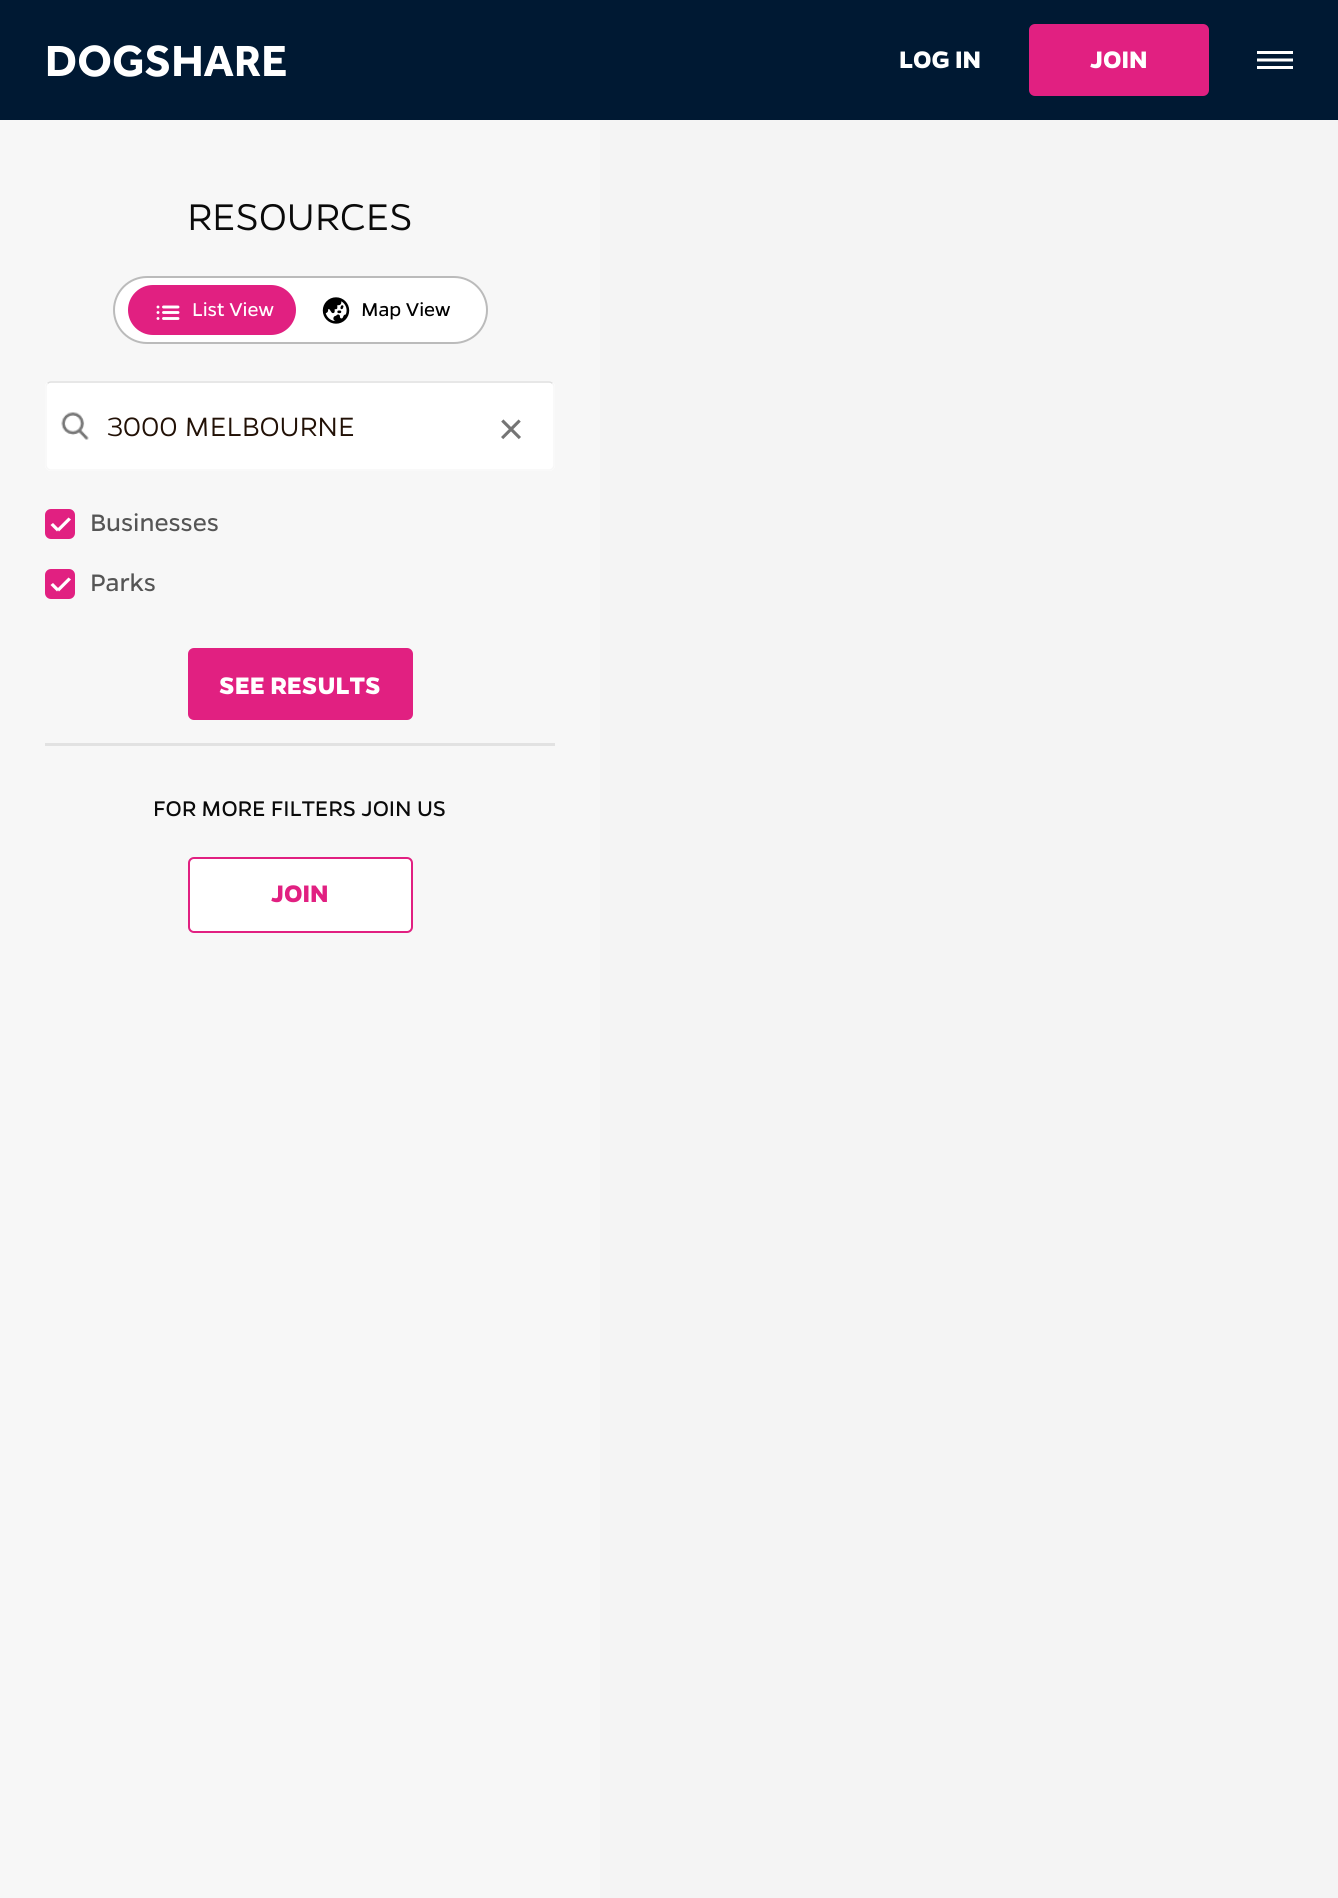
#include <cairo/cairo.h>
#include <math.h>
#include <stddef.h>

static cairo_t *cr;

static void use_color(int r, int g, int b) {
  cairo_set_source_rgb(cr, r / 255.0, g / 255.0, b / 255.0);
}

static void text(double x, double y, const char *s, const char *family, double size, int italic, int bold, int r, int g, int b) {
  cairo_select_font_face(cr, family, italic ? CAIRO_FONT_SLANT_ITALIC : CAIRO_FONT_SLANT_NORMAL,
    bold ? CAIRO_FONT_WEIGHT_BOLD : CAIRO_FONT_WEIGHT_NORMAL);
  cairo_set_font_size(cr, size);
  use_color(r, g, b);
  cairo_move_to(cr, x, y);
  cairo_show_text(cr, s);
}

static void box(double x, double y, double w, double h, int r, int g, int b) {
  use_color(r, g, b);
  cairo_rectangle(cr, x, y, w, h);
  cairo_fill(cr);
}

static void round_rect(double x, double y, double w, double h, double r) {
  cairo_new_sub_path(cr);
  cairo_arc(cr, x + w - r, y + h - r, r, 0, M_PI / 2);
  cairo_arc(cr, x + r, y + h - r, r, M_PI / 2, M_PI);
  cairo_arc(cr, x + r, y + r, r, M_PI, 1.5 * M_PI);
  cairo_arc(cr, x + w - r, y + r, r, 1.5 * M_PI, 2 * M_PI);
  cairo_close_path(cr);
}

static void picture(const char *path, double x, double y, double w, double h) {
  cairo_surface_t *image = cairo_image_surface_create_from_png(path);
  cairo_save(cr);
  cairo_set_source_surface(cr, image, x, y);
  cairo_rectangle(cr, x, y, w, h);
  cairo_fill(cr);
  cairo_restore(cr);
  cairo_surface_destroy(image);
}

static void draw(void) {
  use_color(247, 247, 247);
  cairo_paint(cr);
  box(0, 0, 1338, 120, 0, 25, 51);
  use_color(225, 32, 129);
  round_rect(1029, 24, 180, 72, 6);
  cairo_fill(cr);
  use_color(255, 255, 255);
  cairo_set_fill_rule(cr, CAIRO_FILL_RULE_EVEN_ODD);
  cairo_new_path(cr);
  cairo_move_to(cr, 1257, 69);
  cairo_line_to(cr, 1293, 69);
  cairo_line_to(cr, 1293, 66);
  cairo_line_to(cr, 1257, 66);
  cairo_close_path(cr);
  cairo_move_to(cr, 1257, 61.5);
  cairo_line_to(cr, 1293, 61.5);
  cairo_line_to(cr, 1293, 58.5);
  cairo_line_to(cr, 1257, 58.5);
  cairo_close_path(cr);
  cairo_move_to(cr, 1293, 54);
  cairo_line_to(cr, 1257, 54);
  cairo_line_to(cr, 1257, 51);
  cairo_line_to(cr, 1293, 51);
  cairo_close_path(cr);
  cairo_fill(cr);
  round_rect(114, 277, 373, 66, 33);
  cairo_fill_preserve(cr);
  use_color(187, 187, 187);
  cairo_stroke(cr);
  use_color(225, 32, 129);
  round_rect(128, 285, 168, 50, 25);
  cairo_fill(cr);
  cairo_new_path(cr);
  cairo_move_to(cr, 163.5, 307);
  cairo_line_to(cr, 178, 307);
  cairo_move_to(cr, 163.5, 312.5);
  cairo_line_to(cr, 178, 312.5);
  cairo_move_to(cr, 163.5, 318.5);
  cairo_line_to(cr, 178, 318.5);
  cairo_move_to(cr, 158, 307);
  cairo_line_to(cr, 158, 307);
  cairo_move_to(cr, 158, 312.5);
  cairo_line_to(cr, 158, 312.5);
  cairo_move_to(cr, 158, 318.5);
  cairo_line_to(cr, 158, 318.5);
  use_color(255, 255, 255);
  cairo_set_line_width(cr, 2.9);
  cairo_set_line_cap(cr, CAIRO_LINE_CAP_ROUND);
  cairo_stroke(cr);
  picture("img_01.png", 322, 297, 28, 27);
  round_rect(45, 381, 510, 90, 6);
  cairo_fill(cr);
  picture("img_02.png", 61, 412, 28, 28);
  cairo_new_path(cr);
  cairo_move_to(cr, 47.5, 383.5);
  cairo_curve_to(cr, 48.5, 382.5, 49.5, 382, 51, 382);
  cairo_line_to(cr, 549, 382);
  cairo_curve_to(cr, 550.5, 382, 551.5, 382.5, 552.5, 383.5);
  use_color(222, 222, 222);
  cairo_set_line_width(cr, 1.5);
  cairo_set_line_cap(cr, CAIRO_LINE_CAP_BUTT);
  cairo_stroke(cr);
  cairo_new_path(cr);
  cairo_move_to(cr, 552.5, 383.5);
  cairo_curve_to(cr, 553.5, 384.5, 554, 385.5, 554, 387);
  cairo_line_to(cr, 554, 465);
  cairo_curve_to(cr, 554, 466.5, 553.5, 467.5, 552.5, 468.5);
  cairo_curve_to(cr, 551.5, 469.5, 550.5, 470, 549, 470);
  cairo_line_to(cr, 51, 470);
  cairo_curve_to(cr, 49.5, 470, 48.5, 469.5, 47.5, 468.5);
  cairo_curve_to(cr, 46.5, 467.5, 46, 466.5, 46, 465);
  cairo_line_to(cr, 46, 387);
  cairo_curve_to(cr, 46, 385.5, 46.5, 384.5, 47.5, 383.5);
  use_color(247, 247, 247);
  cairo_stroke(cr);
  use_color(225, 32, 129);
  round_rect(46, 510, 28, 28, 5);
  cairo_fill_preserve(cr);
  cairo_set_line_width(cr, 2);
  cairo_stroke(cr);
  use_color(255, 255, 255);
  cairo_set_fill_rule(cr, CAIRO_FILL_RULE_WINDING);
  cairo_new_path(cr);
  cairo_move_to(cr, 68.5, 517.5);
  cairo_line_to(cr, 71, 519.5);
  cairo_line_to(cr, 59, 531.5);
  cairo_line_to(cr, 57, 529);
  cairo_close_path(cr);
  cairo_fill(cr);
  cairo_new_path(cr);
  cairo_move_to(cr, 53, 523);
  cairo_line_to(cr, 59, 529);
  cairo_line_to(cr, 57, 531.5);
  cairo_line_to(cr, 50.5, 525);
  cairo_close_path(cr);
  cairo_fill(cr);
  use_color(225, 32, 129);
  round_rect(46, 570, 28, 28, 5);
  cairo_fill_preserve(cr);
  cairo_stroke(cr);
  use_color(255, 255, 255);
  cairo_new_path(cr);
  cairo_move_to(cr, 68.5, 577.5);
  cairo_line_to(cr, 71, 579.5);
  cairo_line_to(cr, 59, 591.5);
  cairo_line_to(cr, 57, 589);
  cairo_close_path(cr);
  cairo_fill(cr);
  cairo_new_path(cr);
  cairo_move_to(cr, 53, 583);
  cairo_line_to(cr, 59, 589);
  cairo_line_to(cr, 57, 591.5);
  cairo_line_to(cr, 50.5, 585);
  cairo_close_path(cr);
  cairo_fill(cr);
  use_color(225, 32, 129);
  round_rect(188, 648, 225, 72, 6);
  cairo_fill(cr);
  box(45, 743, 510, 3, 226, 226, 226);
  use_color(255, 255, 255);
  round_rect(189, 858, 223, 74, 5);
  cairo_fill_preserve(cr);
  use_color(225, 32, 129);
  cairo_stroke(cr);
  box(600, 120, 738, 1778, 244, 244, 244);
  text(45, 76, "DOGSHARE", "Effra", 45, 0, 1, 255, 255, 255);
  text(899, 68, "LOG IN", "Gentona", 27, 0, 1, 255, 255, 255);
  text(1090, 68, "JOIN", "Gentona", 27, 0, 1, 255, 255, 255);
  text(187, 230, "RESOURCES", "Gentona Light", 42, 0, 0, 10, 10, 10);
  text(192, 316, "List View", "Gentona", 21, 0, 0, 255, 255, 255);
  text(361, 316, "Map View", "Gentona", 21, 0, 0, 0, 0, 0);
  text(107, 436, "3000 MELBOURNE", "Gentona Light", 30, 0, 0, 34, 17, 6);
  text(497, 444, "×", "Gentona Light", 60, 0, 0, 117, 117, 117);
  text(90, 531, "Businesses", "Gentona", 27, 0, 0, 85, 85, 85);
  text(90, 591, "Parks", "Gentona", 27, 0, 0, 85, 85, 85);
  text(219, 694, "SEE RESULTS", "Gentona", 27, 0, 1, 255, 255, 255);
  text(153, 816, "FOR MORE FILTERS JOIN US", "Gentona", 24, 0, 0, 10, 10, 10);
  text(271, 902, "JOIN", "Gentona", 27, 0, 1, 225, 32, 129);
}

int main(void) {
  cairo_surface_t *surface = cairo_image_surface_create(CAIRO_FORMAT_RGB24, 1338, 1898);
  cr = cairo_create(surface);
  cairo_font_options_t *options = cairo_font_options_create();
  cairo_font_options_set_hint_metrics(options, CAIRO_HINT_METRICS_OFF);
  cairo_font_options_set_hint_style(options, CAIRO_HINT_STYLE_NONE);
  cairo_set_font_options(cr, options);
  cairo_set_miter_limit(cr, 4);
  draw();
  cairo_surface_write_to_png(surface, "out.png");
  cairo_font_options_destroy(options);
  cairo_destroy(cr);
  cairo_surface_destroy(surface);
  return 0;
}
